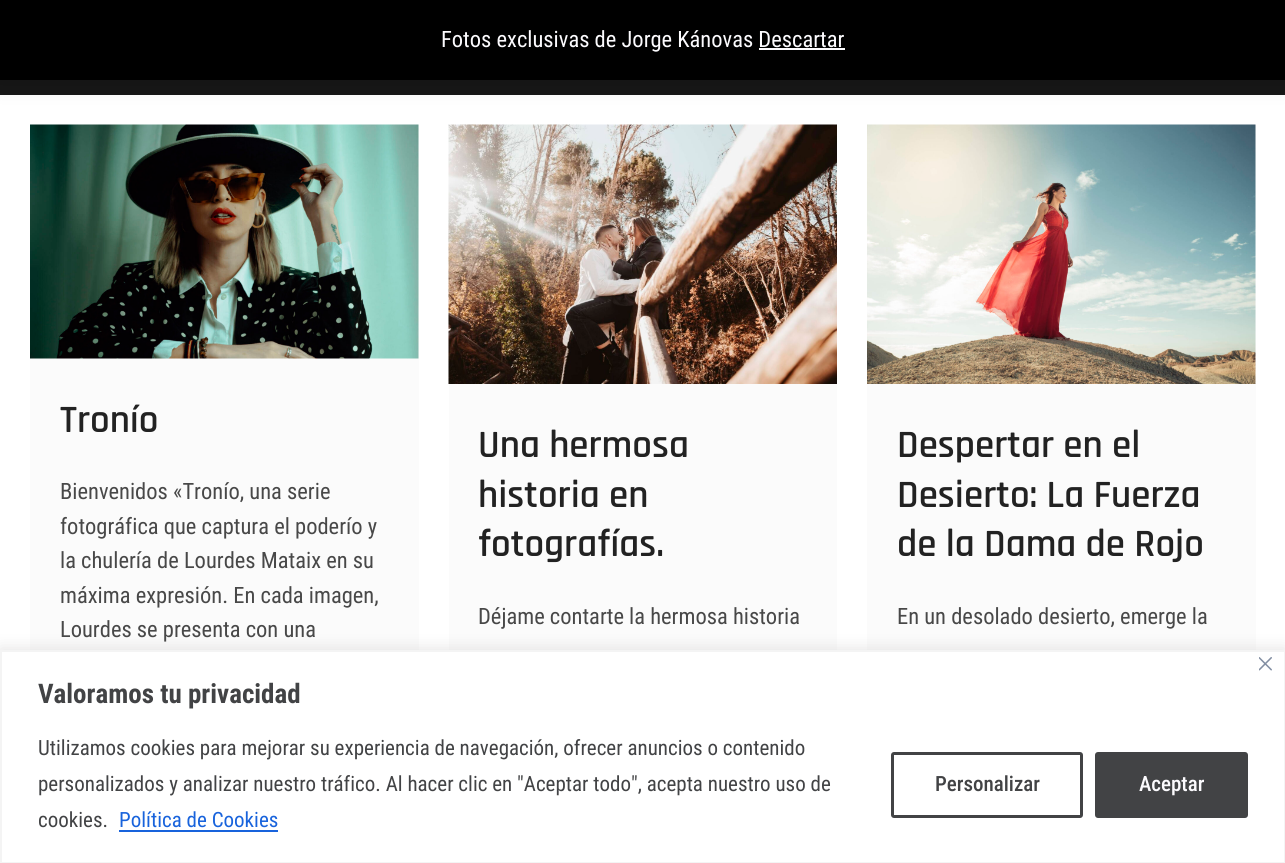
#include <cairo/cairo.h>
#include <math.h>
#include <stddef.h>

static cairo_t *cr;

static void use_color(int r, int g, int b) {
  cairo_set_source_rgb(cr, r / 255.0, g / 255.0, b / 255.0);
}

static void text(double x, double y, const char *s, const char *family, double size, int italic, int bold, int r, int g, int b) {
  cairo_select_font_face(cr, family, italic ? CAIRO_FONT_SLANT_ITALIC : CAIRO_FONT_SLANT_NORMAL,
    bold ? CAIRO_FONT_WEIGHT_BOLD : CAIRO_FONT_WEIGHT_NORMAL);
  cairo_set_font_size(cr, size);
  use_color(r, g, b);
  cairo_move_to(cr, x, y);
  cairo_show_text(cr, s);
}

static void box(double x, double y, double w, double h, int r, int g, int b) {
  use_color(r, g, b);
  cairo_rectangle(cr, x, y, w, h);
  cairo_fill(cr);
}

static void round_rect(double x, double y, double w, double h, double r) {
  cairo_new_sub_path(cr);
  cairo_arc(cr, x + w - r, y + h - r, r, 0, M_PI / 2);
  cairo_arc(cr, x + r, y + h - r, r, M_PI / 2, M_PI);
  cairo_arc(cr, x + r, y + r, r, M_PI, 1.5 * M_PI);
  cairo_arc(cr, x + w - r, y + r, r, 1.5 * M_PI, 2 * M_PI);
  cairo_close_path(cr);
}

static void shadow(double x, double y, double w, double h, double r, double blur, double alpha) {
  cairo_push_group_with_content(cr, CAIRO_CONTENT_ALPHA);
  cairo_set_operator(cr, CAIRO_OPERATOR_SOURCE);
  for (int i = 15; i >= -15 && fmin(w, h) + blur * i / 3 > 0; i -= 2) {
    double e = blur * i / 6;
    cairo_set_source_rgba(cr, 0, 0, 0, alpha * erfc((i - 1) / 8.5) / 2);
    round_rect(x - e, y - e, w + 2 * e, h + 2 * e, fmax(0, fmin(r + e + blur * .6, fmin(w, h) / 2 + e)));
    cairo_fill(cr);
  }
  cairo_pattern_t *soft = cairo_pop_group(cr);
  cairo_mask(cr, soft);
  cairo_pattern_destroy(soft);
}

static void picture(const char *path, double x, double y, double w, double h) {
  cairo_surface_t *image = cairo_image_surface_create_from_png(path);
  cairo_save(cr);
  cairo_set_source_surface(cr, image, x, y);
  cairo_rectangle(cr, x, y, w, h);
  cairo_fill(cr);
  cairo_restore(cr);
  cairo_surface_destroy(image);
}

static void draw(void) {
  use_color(255, 255, 255);
  cairo_paint(cr);
  box(0, 80, 1285, 15, 23, 23, 23);
  use_color(0, 0, 0);
  shadow(0, 2, 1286, 79, 0, 11, 0.2);
  box(0, 0, 1285, 80, 0, 0, 0);
  box(759, 48, 86, 2, 252, 251, 254);
  box(30, 125, 389, 525, 251, 251, 251);
  picture("img_01.png", 30, 124, 389, 235);
  box(449, 384, 388, 266, 251, 251, 251);
  picture("img_02.png", 448, 124, 389, 260);
  box(867, 125, 389, 525, 251, 251, 251);
  picture("img_03.png", 867, 124, 389, 260);
  use_color(172, 171, 171);
  shadow(0, 648, 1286, 215, 0, 7.5, 0.3);
  use_color(255, 255, 255);
  cairo_rectangle(cr, 1, 651, 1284, 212);
  cairo_fill_preserve(cr);
  use_color(244, 244, 244);
  cairo_stroke(cr);
  picture("img_04.png", 1259, 657, 13, 14);
  box(119, 830, 159, 2, 24, 99, 220);
  round_rect(892.5, 753.5, 189, 63, 1.5);
  use_color(66, 67, 69);
  cairo_set_line_width(cr, 3);
  cairo_stroke(cr);
  round_rect(1096.5, 753.5, 150, 63, 1.5);
  cairo_fill_preserve(cr);
  cairo_stroke(cr);
  text(441, 47, "Fotos exclusivas de Jorge Kánovas Descartar", "Roboto Condensed", 22.5, 0, 0, 252, 251, 254);
  text(60, 432, "Tronío", "Rajdhani SemiBold", 39, 0, 0, 34, 34, 34);
  text(60, 499, "Bienvenidos «Tronío, una serie", "Roboto Condensed", 22.5, 0, 0, 72, 72, 72);
  text(60, 534, "fotográfica que captura el poderío y", "Roboto Condensed", 22.5, 0, 0, 72, 72, 72);
  text(60, 568, "la chulería de Lourdes Mataix en su", "Roboto Condensed", 22.5, 0, 0, 72, 72, 72);
  text(60, 603, "máxima expresión. En cada imagen,", "Roboto Condensed", 22.5, 0, 0, 72, 72, 72);
  text(60, 637, "Lourdes se presenta con una", "Roboto Condensed", 22.5, 0, 0, 72, 72, 72);
  text(478, 457, "Una hermosa", "Rajdhani SemiBold", 39, 0, 0, 34, 34, 34);
  text(478, 507, "historia en", "Rajdhani SemiBold", 39, 0, 0, 34, 34, 34);
  text(478, 556, "fotografías.", "Rajdhani SemiBold", 39, 0, 0, 34, 34, 34);
  text(478, 624, "Déjame contarte la hermosa historia", "Roboto Condensed", 22.5, 0, 0, 72, 72, 72);
  text(897, 457, "Despertar en el", "Rajdhani SemiBold", 39, 0, 0, 34, 34, 34);
  text(897, 507, "Desierto: La Fuerza", "Rajdhani SemiBold", 39, 0, 0, 34, 34, 34);
  text(897, 556, "de la Dama de Rojo", "Rajdhani SemiBold", 39, 0, 0, 34, 34, 34);
  text(897, 624, "En un desolado desierto, emerge la", "Roboto Condensed", 22.5, 0, 0, 72, 72, 72);
  text(38, 703, "Valoramos tu privacidad", "Roboto Condensed", 27, 0, 1, 66, 67, 69);
  text(38, 755, "Utilizamos cookies para mejorar su experiencia de navegación, ofrecer anuncios o contenido", "Roboto Condensed", 21, 0, 0, 66, 67, 69);
  text(38, 791, "personalizados y analizar nuestro tráfico. Al hacer clic en \"Aceptar todo\", acepta nuestro uso de", "Roboto Condensed", 21, 0, 0, 66, 67, 69);
  text(38, 827, "cookies.", "Roboto Condensed", 21, 0, 0, 66, 67, 69);
  text(119, 827, "Política de Cookies", "Roboto Condensed", 21, 0, 0, 24, 99, 220);
  text(935, 791, "Personalizar", "Roboto Condensed Medium", 21, 0, 0, 66, 67, 69);
  text(1139, 791, "Aceptar", "Roboto Condensed Medium", 21, 0, 0, 252, 251, 254);
}

int main(void) {
  cairo_surface_t *surface = cairo_image_surface_create(CAIRO_FORMAT_RGB24, 1285, 863);
  cr = cairo_create(surface);
  cairo_font_options_t *options = cairo_font_options_create();
  cairo_font_options_set_hint_metrics(options, CAIRO_HINT_METRICS_OFF);
  cairo_font_options_set_hint_style(options, CAIRO_HINT_STYLE_NONE);
  cairo_set_font_options(cr, options);
  cairo_set_miter_limit(cr, 4);
  draw();
  cairo_surface_write_to_png(surface, "out.png");
  cairo_font_options_destroy(options);
  cairo_destroy(cr);
  cairo_surface_destroy(surface);
  return 0;
}
